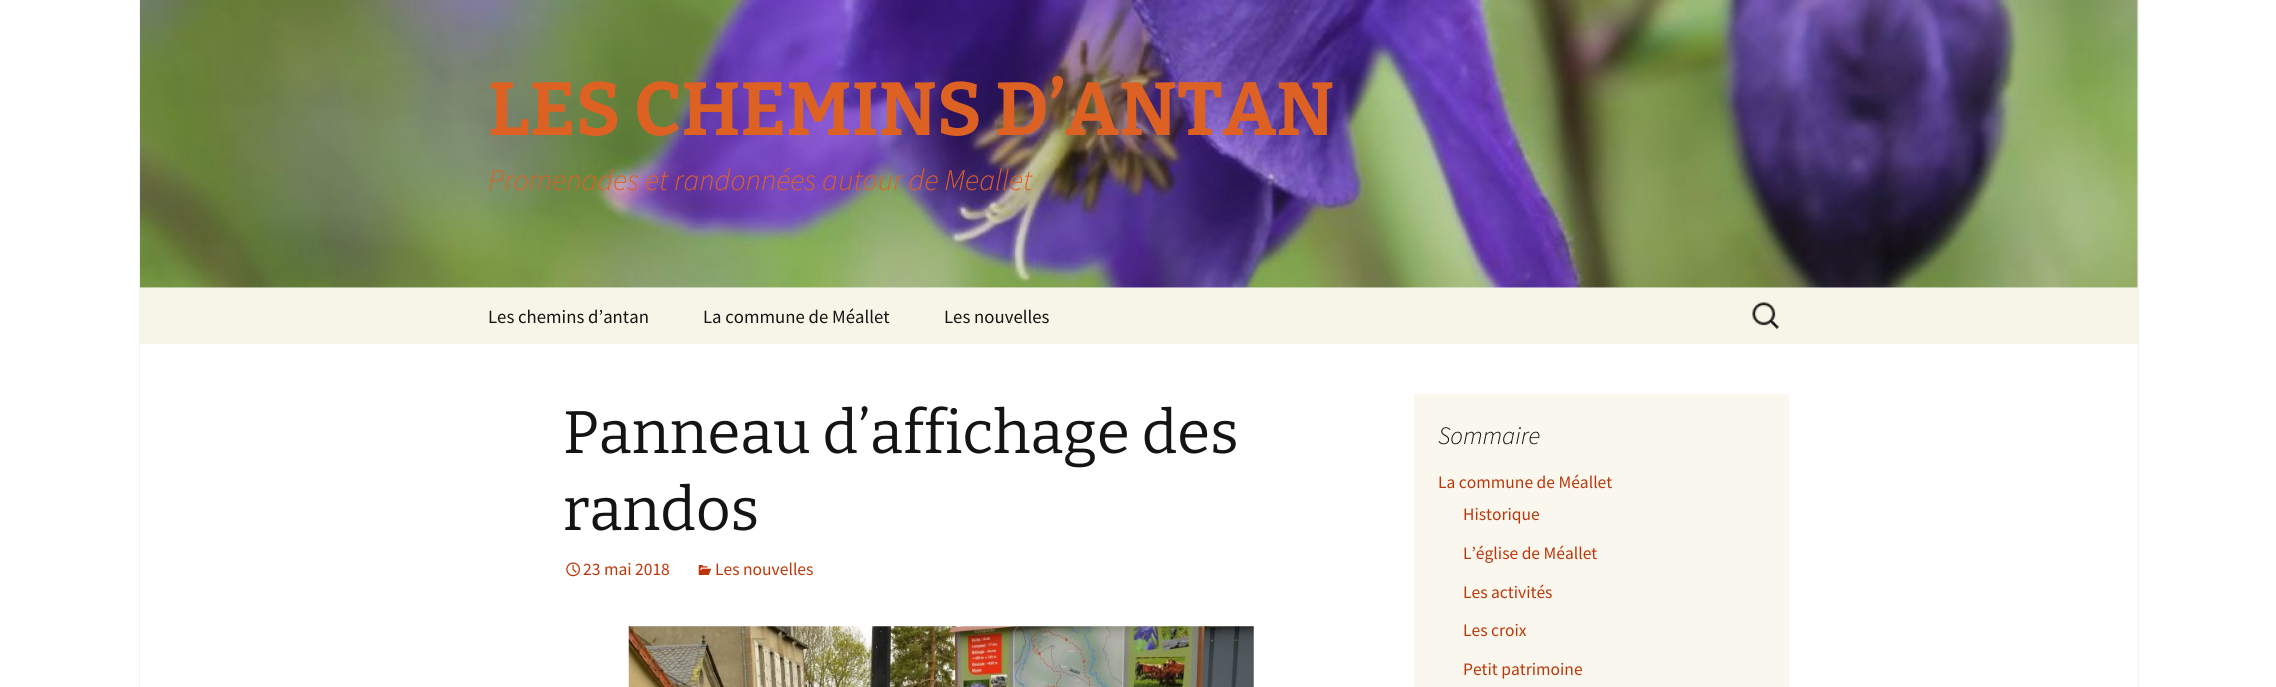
#include <cairo/cairo.h>
#include <math.h>
#include <stddef.h>

static cairo_t *cr;

static void use_color(int r, int g, int b) {
  cairo_set_source_rgb(cr, r / 255.0, g / 255.0, b / 255.0);
}

static void text(double x, double y, const char *s, const char *family, double size, int italic, int bold, int r, int g, int b) {
  cairo_select_font_face(cr, family, italic ? CAIRO_FONT_SLANT_ITALIC : CAIRO_FONT_SLANT_NORMAL,
    bold ? CAIRO_FONT_WEIGHT_BOLD : CAIRO_FONT_WEIGHT_NORMAL);
  cairo_set_font_size(cr, size);
  use_color(r, g, b);
  cairo_move_to(cr, x, y);
  cairo_show_text(cr, s);
}

static void box(double x, double y, double w, double h, int r, int g, int b) {
  use_color(r, g, b);
  cairo_rectangle(cr, x, y, w, h);
  cairo_fill(cr);
}

static void picture(const char *path, double x, double y, double w, double h) {
  cairo_surface_t *image = cairo_image_surface_create_from_png(path);
  cairo_save(cr);
  cairo_set_source_surface(cr, image, x, y);
  cairo_rectangle(cr, x, y, w, h);
  cairo_fill(cr);
  cairo_restore(cr);
  cairo_surface_destroy(image);
}

static void draw(void) {
  use_color(255, 255, 255);
  cairo_paint(cr);
  box(2138, 0, 1, 687, 242, 242, 242);
  box(139, 0, 1, 687, 242, 242, 242);
  picture("img_01.png", 140, 0, 1998, 288);
  box(140, 288, 1998, 56, 247, 245, 231);
  picture("img_02.png", 1752, 302, 27, 27);
  picture("img_03.png", 566, 562, 14, 15);
  picture("img_04.png", 698, 565, 14, 10);
  picture("img_05.png", 628, 626, 626, 61);
  box(1414, 394, 375, 293, 250, 248, 238);
  text(488, 135, "LES CHEMINS D’ANTAN", "Bitter Thin", 75, 0, 0, 221, 97, 35);
  text(488, 190, "Promenades et randonnées autour de Meallet", "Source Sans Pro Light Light", 30, 1, 0, 221, 97, 35);
  text(488, 323, "Les chemins d’antan", "Source Sans Pro", 18.75, 0, 0, 20, 20, 18);
  text(703, 323, "La commune de Méallet", "Source Sans Pro", 18.75, 0, 0, 20, 20, 18);
  text(944, 323, "Les nouvelles", "Source Sans Pro", 18.75, 0, 0, 20, 20, 18);
  text(563, 453, "Panneau d’affichage des", "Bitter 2 Thin", 60, 0, 0, 20, 20, 18);
  text(563, 530, "randos", "Bitter 2 Thin", 60, 0, 0, 20, 20, 18);
  text(583, 575, "23 mai 2018", "Source Sans Pro", 17.5, 0, 0, 188, 54, 10);
  text(715, 575, "Les nouvelles", "Source Sans Pro", 17.5, 0, 0, 188, 54, 10);
  text(1438, 444, "Sommaire", "Source Sans Pro Light Light", 25, 1, 0, 20, 20, 18);
  text(1438, 488, "La commune de Méallet", "Source Sans Pro", 17.5, 0, 0, 188, 54, 10);
  text(1463, 520, "Historique", "Source Sans Pro", 17.5, 0, 0, 188, 54, 10);
  text(1463, 559, "L’église de Méallet", "Source Sans Pro", 17.5, 0, 0, 188, 54, 10);
  text(1463, 598, "Les activités", "Source Sans Pro", 17.5, 0, 0, 188, 54, 10);
  text(1463, 636, "Les croix", "Source Sans Pro", 17.5, 0, 0, 188, 54, 10);
  text(1463, 675, "Petit patrimoine", "Source Sans Pro", 17.5, 0, 0, 188, 54, 10);
}

int main(void) {
  cairo_surface_t *surface = cairo_image_surface_create(CAIRO_FORMAT_RGB24, 2276, 687);
  cr = cairo_create(surface);
  cairo_font_options_t *options = cairo_font_options_create();
  cairo_font_options_set_hint_metrics(options, CAIRO_HINT_METRICS_OFF);
  cairo_font_options_set_hint_style(options, CAIRO_HINT_STYLE_NONE);
  cairo_set_font_options(cr, options);
  cairo_set_miter_limit(cr, 4);
  draw();
  cairo_surface_write_to_png(surface, "out.png");
  cairo_font_options_destroy(options);
  cairo_destroy(cr);
  cairo_surface_destroy(surface);
  return 0;
}
